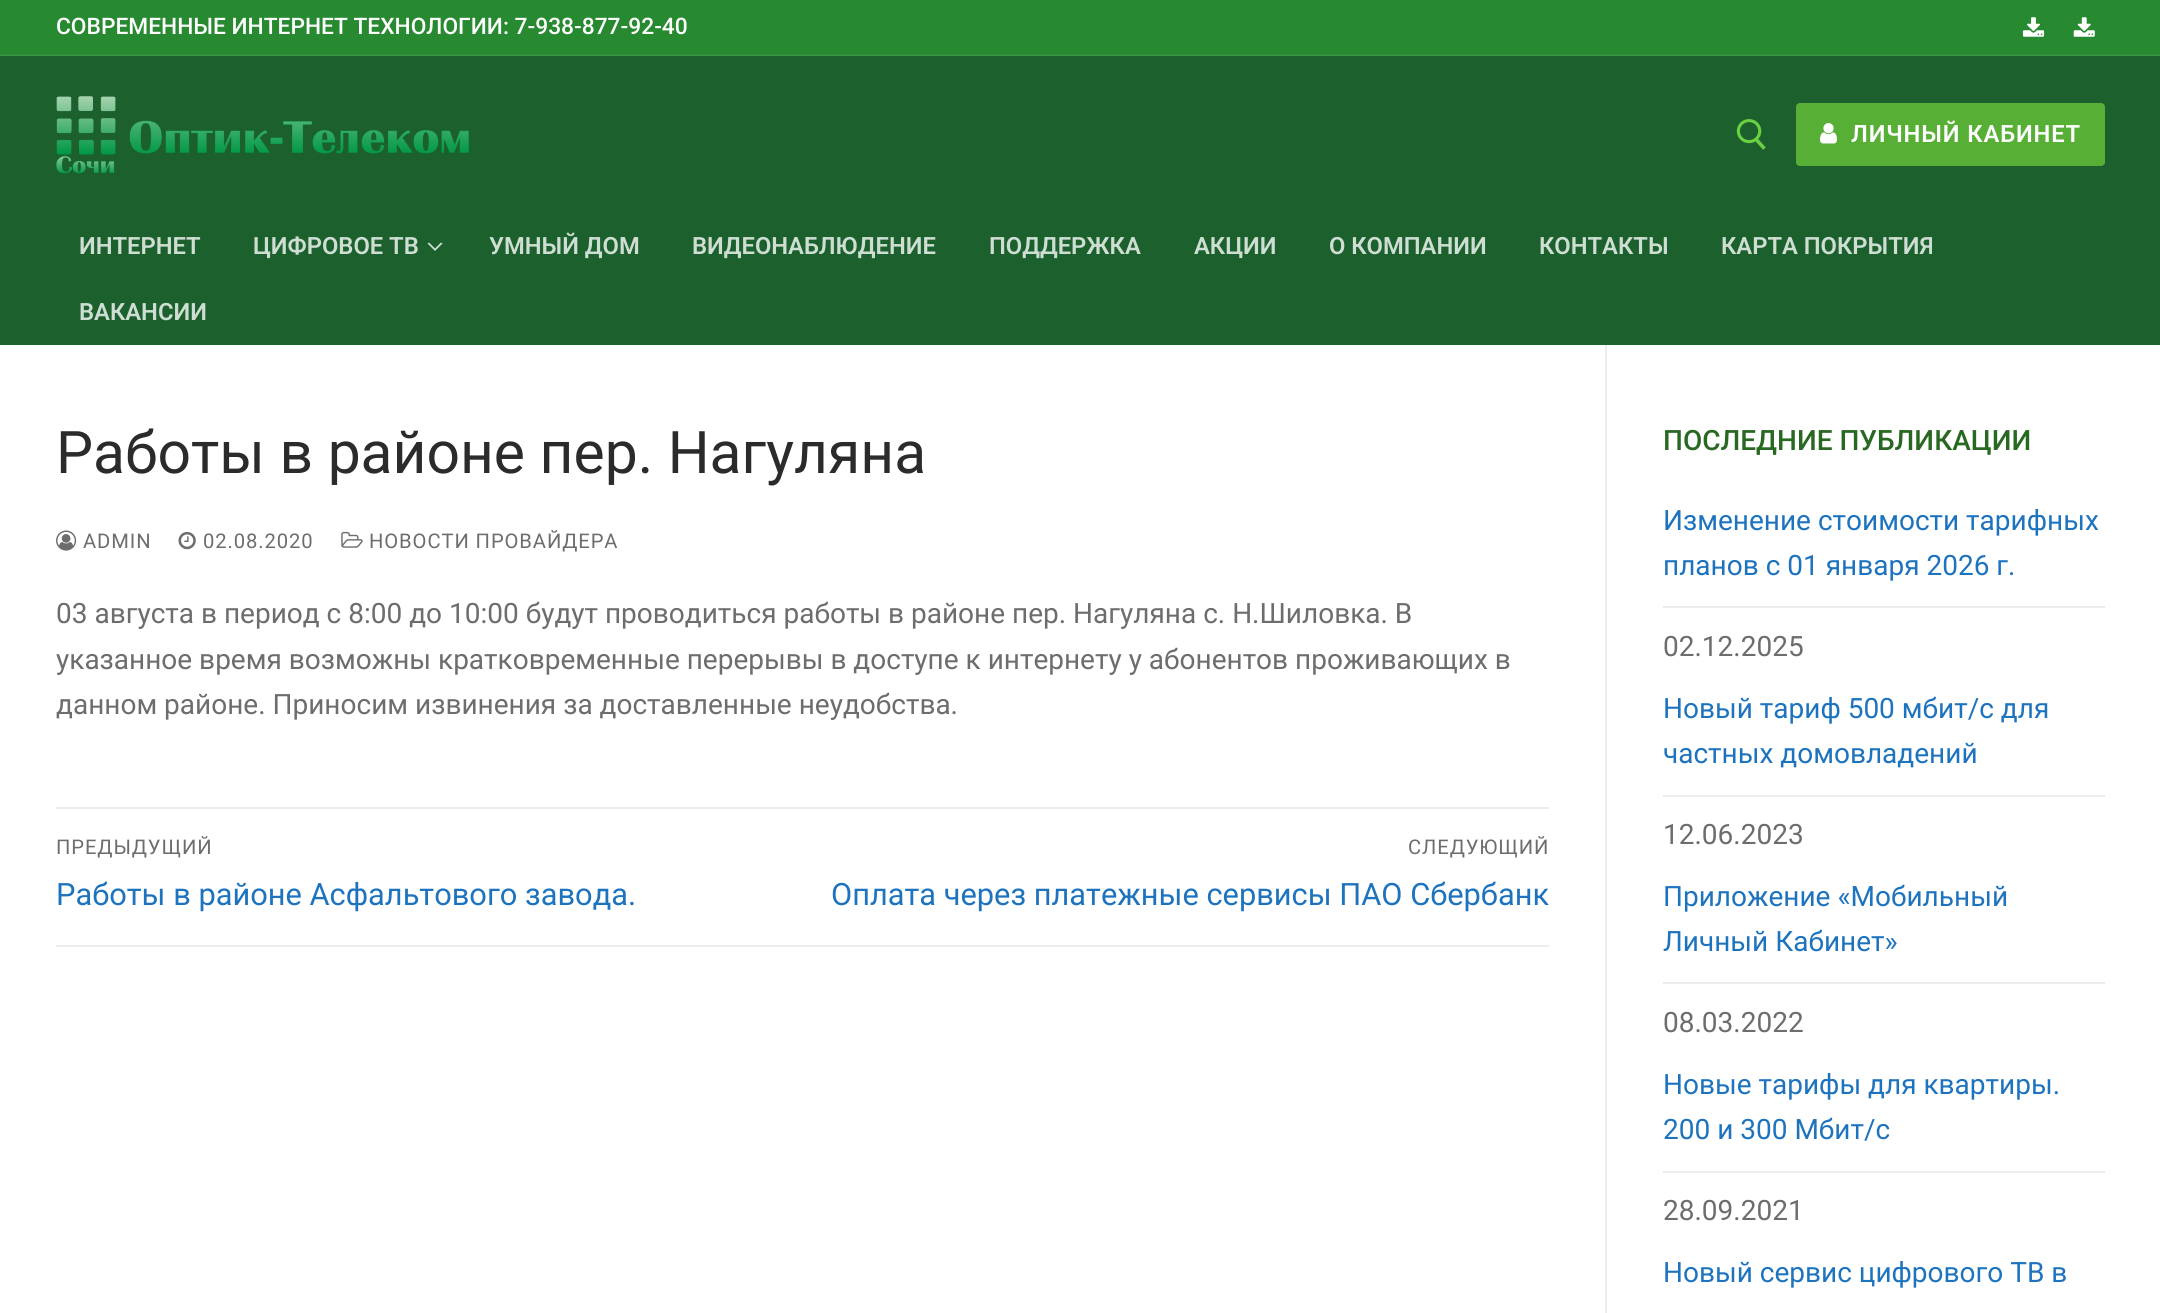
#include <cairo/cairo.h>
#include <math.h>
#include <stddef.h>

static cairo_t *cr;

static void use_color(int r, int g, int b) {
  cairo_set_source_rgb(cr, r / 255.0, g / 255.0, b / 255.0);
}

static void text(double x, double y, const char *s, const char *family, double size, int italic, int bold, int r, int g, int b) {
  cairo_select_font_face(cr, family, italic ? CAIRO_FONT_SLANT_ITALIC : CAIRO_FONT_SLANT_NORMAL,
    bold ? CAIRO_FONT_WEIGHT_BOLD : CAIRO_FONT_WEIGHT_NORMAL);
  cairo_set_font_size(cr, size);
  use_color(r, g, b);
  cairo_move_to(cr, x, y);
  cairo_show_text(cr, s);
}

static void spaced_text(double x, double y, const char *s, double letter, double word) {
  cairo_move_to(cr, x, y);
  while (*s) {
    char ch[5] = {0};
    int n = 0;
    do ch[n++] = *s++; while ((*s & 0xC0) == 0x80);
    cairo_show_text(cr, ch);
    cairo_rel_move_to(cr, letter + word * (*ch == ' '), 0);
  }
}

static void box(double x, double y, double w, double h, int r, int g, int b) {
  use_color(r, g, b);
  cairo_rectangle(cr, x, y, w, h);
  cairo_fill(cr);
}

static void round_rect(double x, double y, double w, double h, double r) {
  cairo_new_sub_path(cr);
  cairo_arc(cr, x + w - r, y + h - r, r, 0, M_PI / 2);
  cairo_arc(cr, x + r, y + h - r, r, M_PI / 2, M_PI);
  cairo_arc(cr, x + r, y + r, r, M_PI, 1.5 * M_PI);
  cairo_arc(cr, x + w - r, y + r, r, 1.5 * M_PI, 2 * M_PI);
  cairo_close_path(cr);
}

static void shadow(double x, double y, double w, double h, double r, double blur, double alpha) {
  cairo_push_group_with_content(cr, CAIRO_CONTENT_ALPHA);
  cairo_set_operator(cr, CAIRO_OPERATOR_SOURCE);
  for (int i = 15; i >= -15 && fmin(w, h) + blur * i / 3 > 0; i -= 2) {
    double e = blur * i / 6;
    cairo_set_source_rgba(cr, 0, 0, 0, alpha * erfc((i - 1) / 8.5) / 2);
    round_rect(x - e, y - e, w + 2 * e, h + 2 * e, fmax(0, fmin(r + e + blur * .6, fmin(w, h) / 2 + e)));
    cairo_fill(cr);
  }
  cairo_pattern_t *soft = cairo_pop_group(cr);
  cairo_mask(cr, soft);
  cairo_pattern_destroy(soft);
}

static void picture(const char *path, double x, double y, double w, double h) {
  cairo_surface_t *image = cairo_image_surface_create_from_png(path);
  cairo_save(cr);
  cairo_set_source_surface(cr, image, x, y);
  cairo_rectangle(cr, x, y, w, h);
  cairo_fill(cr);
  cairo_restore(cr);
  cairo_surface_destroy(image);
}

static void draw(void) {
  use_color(255, 255, 255);
  cairo_paint(cr);
  box(0, 0, 2160, 56, 39, 137, 48);
  picture("img_01.png", 2022, 17, 23, 20);
  picture("img_02.png", 2073, 17, 22, 20);
  use_color(225, 229, 234);
  shadow(0, 58, 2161, 157, 0, 2, 1);
  box(0, 56, 2160, 289, 28, 96, 46);
  picture("img_03.png", 56, 96, 413, 78);
  picture("img_04.png", 1736, 119, 30, 31);
  use_color(88, 175, 54);
  round_rect(1796, 103, 309, 63, 4);
  cairo_fill(cr);
  picture("img_05.png", 1820, 123, 17, 21);
  use_color(207, 222, 211);
  cairo_new_path(cr);
  cairo_move_to(cr, 435, 251);
  cairo_line_to(cr, 427.5, 243.5);
  cairo_line_to(cr, 429, 242.5);
  cairo_line_to(cr, 435, 248.5);
  cairo_close_path(cr);
  cairo_move_to(cr, 442.5, 243.5);
  cairo_line_to(cr, 435, 251);
  cairo_line_to(cr, 435, 248.5);
  cairo_line_to(cr, 441, 242.5);
  cairo_close_path(cr);
  cairo_fill(cr);
  box(1605, 345, 2, 968, 234, 236, 238);
  picture("img_06.png", 56, 530, 21, 21);
  picture("img_07.png", 178, 531, 18, 19);
  picture("img_08.png", 341, 531, 22, 17);
  box(56, 807, 1493, 2, 234, 236, 238);
  box(56, 945, 1493, 2, 234, 236, 238);
  box(1663, 606, 442, 2, 234, 236, 238);
  box(1663, 795, 442, 2, 234, 236, 238);
  box(1663, 982, 442, 2, 234, 236, 238);
  box(1663, 1171, 442, 2, 234, 236, 238);
  text(56, 34, "СОВРЕМЕННЫЕ ИНТЕРНЕТ ТЕХНОЛОГИИ: 7-938-877-92-40", "Roboto Medium", 22.75, 0, 0, 253, 254, 253);
  cairo_select_font_face(cr, "Roboto SemiBold", CAIRO_FONT_SLANT_NORMAL, CAIRO_FONT_WEIGHT_NORMAL);
  cairo_set_font_size(cr, 23.75);
  spaced_text(1851, 142, "ЛИЧНЫЙ КАБИНЕТ", 0.9, 0);
  text(79, 254, "ИНТЕРНЕТ", "Roboto SemiBold", 23.75, 0, 0, 207, 222, 211);
  text(253, 254, "ЦИФРОВОЕ ТВ", "Roboto SemiBold", 23.75, 0, 0, 207, 222, 211);
  text(489, 254, "УМНЫЙ ДОМ", "Roboto SemiBold", 23.75, 0, 0, 207, 222, 211);
  text(692, 254, "ВИДЕОНАБЛЮДЕНИЕ", "Roboto SemiBold", 23.75, 0, 0, 207, 222, 211);
  text(989, 254, "ПОДДЕРЖКА", "Roboto SemiBold", 23.75, 0, 0, 207, 222, 211);
  text(1194, 254, "АКЦИИ", "Roboto SemiBold", 23.75, 0, 0, 207, 222, 211);
  text(1329, 254, "О КОМПАНИИ", "Roboto SemiBold", 23.75, 0, 0, 207, 222, 211);
  text(1539, 254, "КОНТАКТЫ", "Roboto SemiBold", 23.75, 0, 0, 207, 222, 211);
  text(1721, 254, "КАРТА ПОКРЫТИЯ", "Roboto SemiBold", 23.75, 0, 0, 207, 222, 211);
  text(79, 320, "ВАКАНСИИ", "Roboto SemiBold", 23.75, 0, 0, 207, 222, 211);
  text(56, 473, "Работы в районе пер. Нагуляна", "Roboto", 58.75, 0, 0, 43, 43, 43);
  cairo_set_font_size(cr, 20.2);
  use_color(109, 109, 109);
  spaced_text(83, 548, "ADMIN", 0.9, 0);
  spaced_text(203, 548, "02.08.2020", 0.9, 0);
  spaced_text(369, 548, "НОВОСТИ ПРОВАЙДЕРА", 0.9, 0);
  text(56, 623, "03 августа в период с 8:00 до 10:00 будут проводиться работы в районе пер. Нагуляна с. Н.Шиловка. В", "Roboto", 28, 0, 0, 109, 109, 109);
  text(56, 669, "указанное время возможны кратковременные перерывы в доступе к интернету у абонентов проживающих в", "Roboto", 28, 0, 0, 109, 109, 109);
  text(56, 714, "данном районе. Приносим извинения за доставленные неудобства.", "Roboto", 28, 0, 0, 109, 109, 109);
  cairo_set_font_size(cr, 20.2);
  spaced_text(56, 854, "ПРЕДЫДУЩИЙ", 0.9, 0);
  text(56, 905, "Работы в районе Асфальтового завода.", "Roboto", 30.8, 0, 0, 30, 115, 190);
  cairo_set_font_size(cr, 20.2);
  use_color(109, 109, 109);
  spaced_text(1408, 854, "СЛЕДУЮЩИЙ", 0.9, 0);
  text(831, 905, "Оплата через платежные сервисы ПАО Сбербанк", "Roboto", 30.8, 0, 0, 30, 115, 190);
  text(1663, 450, "ПОСЛЕДНИЕ ПУБЛИКАЦИИ", "Roboto Medium", 28, 0, 0, 40, 104, 32);
  text(1663, 530, "Изменение стоимости тарифных", "Roboto", 28, 0, 0, 30, 115, 190);
  text(1663, 575, "планов с 01 января 2026 г.", "Roboto", 28, 0, 0, 30, 115, 190);
  text(1663, 656, "02.12.2025", "Roboto", 28, 0, 0, 109, 109, 109);
  text(1663, 718, "Новый тариф 500 мбит/с для", "Roboto", 28, 0, 0, 30, 115, 190);
  text(1663, 763, "частных домовладений", "Roboto", 28, 0, 0, 30, 115, 190);
  text(1663, 844, "12.06.2023", "Roboto", 28, 0, 0, 109, 109, 109);
  text(1663, 906, "Приложение «Мобильный", "Roboto", 28, 0, 0, 30, 115, 190);
  text(1663, 951, "Личный Кабинет»", "Roboto", 28, 0, 0, 30, 115, 190);
  text(1663, 1032, "08.03.2022", "Roboto", 28, 0, 0, 109, 109, 109);
  text(1663, 1094, "Новые тарифы для квартиры.", "Roboto", 28, 0, 0, 30, 115, 190);
  text(1663, 1139, "200 и 300 Мбит/с", "Roboto", 28, 0, 0, 30, 115, 190);
  text(1663, 1220, "28.09.2021", "Roboto", 28, 0, 0, 109, 109, 109);
  text(1663, 1282, "Новый сервис цифрового ТВ в", "Roboto", 28, 0, 0, 30, 115, 190);
}

int main(void) {
  cairo_surface_t *surface = cairo_image_surface_create(CAIRO_FORMAT_RGB24, 2160, 1313);
  cr = cairo_create(surface);
  cairo_font_options_t *options = cairo_font_options_create();
  cairo_font_options_set_hint_metrics(options, CAIRO_HINT_METRICS_OFF);
  cairo_font_options_set_hint_style(options, CAIRO_HINT_STYLE_NONE);
  cairo_set_font_options(cr, options);
  cairo_set_miter_limit(cr, 4);
  draw();
  cairo_surface_write_to_png(surface, "out.png");
  cairo_font_options_destroy(options);
  cairo_destroy(cr);
  cairo_surface_destroy(surface);
  return 0;
}
